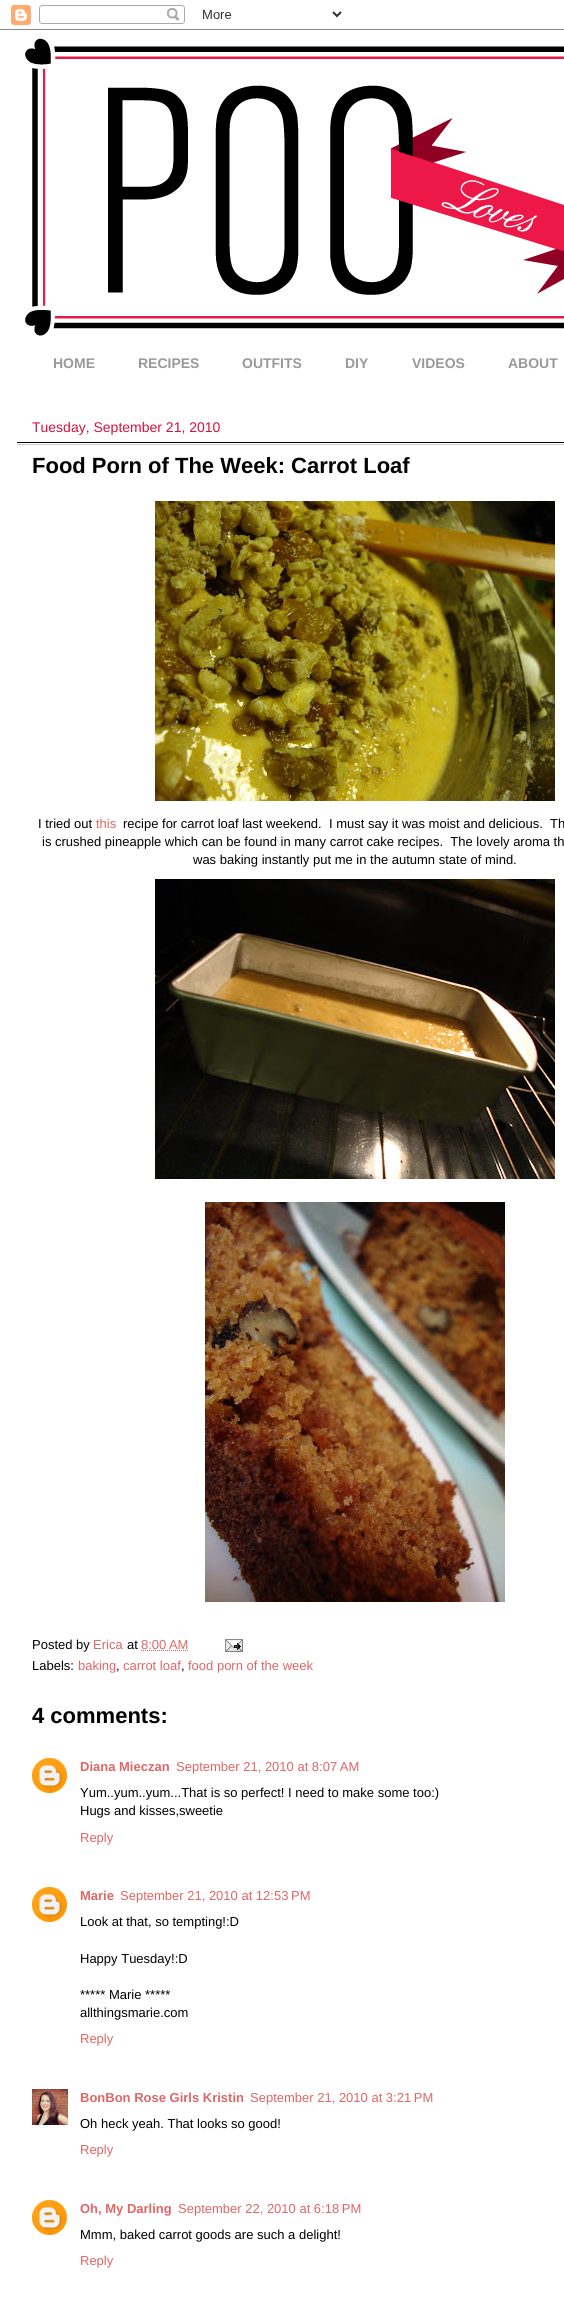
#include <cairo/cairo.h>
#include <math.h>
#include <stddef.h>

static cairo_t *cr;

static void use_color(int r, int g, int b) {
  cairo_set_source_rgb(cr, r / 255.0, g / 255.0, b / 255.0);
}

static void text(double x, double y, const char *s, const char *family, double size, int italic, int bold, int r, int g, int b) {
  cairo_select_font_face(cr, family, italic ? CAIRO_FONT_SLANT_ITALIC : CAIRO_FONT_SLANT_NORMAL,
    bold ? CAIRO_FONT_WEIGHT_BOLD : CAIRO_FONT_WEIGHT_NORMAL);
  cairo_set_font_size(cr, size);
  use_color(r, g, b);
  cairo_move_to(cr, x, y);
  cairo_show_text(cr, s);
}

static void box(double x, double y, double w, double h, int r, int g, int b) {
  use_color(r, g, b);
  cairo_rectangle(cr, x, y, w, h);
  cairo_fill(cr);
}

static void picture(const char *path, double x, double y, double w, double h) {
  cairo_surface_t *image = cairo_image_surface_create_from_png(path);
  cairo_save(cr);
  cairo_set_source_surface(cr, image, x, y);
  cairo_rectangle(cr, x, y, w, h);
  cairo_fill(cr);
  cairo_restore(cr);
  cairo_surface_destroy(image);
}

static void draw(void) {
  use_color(255, 255, 255);
  cairo_paint(cr);
  picture("img_01.png", 0, 5, 564, 25);
  picture("img_02.png", 25, 38, 539, 298);
  box(17, 442, 547, 1, 0, 0, 0);
  box(17, 444, 547, 1, 204, 204, 204);
  picture("img_03.png", 155, 501, 400, 300);
  picture("img_04.png", 155, 879, 400, 300);
  picture("img_05.png", 205, 1202, 300, 400);
  cairo_new_path(cr);
  cairo_move_to(cr, 141, 1650.5);
  cairo_line_to(cr, 188.5, 1650.5);
  use_color(224, 102, 102);
  cairo_set_line_width(cr, 1);
  cairo_set_dash(cr, (double[]){1, 1}, 2, 0);
  cairo_stroke(cr);
  picture("img_06.png", 225, 1639, 18, 13);
  picture("img_07.png", 32, 1758, 35, 35);
  picture("img_07.png", 32, 1887, 35, 35);
  picture("img_08.png", 32, 2089, 36, 36);
  picture("img_07.png", 32, 2200, 35, 35);
  text(53, 368, "HOME", "Liberation Sans", 14, 0, 1, 153, 153, 153);
  text(138, 368, "RECIPES", "Liberation Sans", 14, 0, 1, 153, 153, 153);
  text(242, 368, "OUTFITS", "Liberation Sans", 14, 0, 1, 153, 153, 153);
  text(345, 368, "DIY", "Liberation Sans", 14, 0, 1, 153, 153, 153);
  text(412, 368, "VIDEOS", "Liberation Sans", 14, 0, 1, 153, 153, 153);
  text(508, 368, "ABOUT", "Liberation Sans", 14, 0, 1, 153, 153, 153);
  text(32, 432, "Tuesday, September 21, 2010", "Liberation Sans", 14, 0, 0, 214, 17, 61);
  text(32, 473, "Food Porn of The Week: Carrot Loaf", "Liberation Sans", 22, 0, 1, 0, 0, 0);
  text(38, 828, "I tried out", "Liberation Sans", 13, 0, 0, 0, 0, 0);
  text(96, 828, "this", "Liberation Sans", 13, 0, 0, 224, 102, 102);
  text(123, 828, "recipe for carrot loaf last weekend.  I must say it was moist and delicious.  Th", "Liberation Sans", 13, 0, 0, 0, 0, 0);
  text(42, 846, "is crushed pineapple which can be found in many carrot cake recipes.  The lovely aroma th", "Liberation Sans", 13, 0, 0, 0, 0, 0);
  text(193, 864, "was baking instantly put me in the autumn state of mind.", "Liberation Sans", 13, 0, 0, 0, 0, 0);
  text(32, 1649, "Posted by", "Liberation Sans", 13, 0, 0, 0, 0, 0);
  text(93, 1649, "Erica", "Liberation Sans", 13, 0, 0, 224, 102, 102);
  text(127, 1649, "at", "Liberation Sans", 13, 0, 0, 0, 0, 0);
  text(141, 1649, "8:00 AM", "Liberation Sans", 13, 0, 0, 224, 102, 102);
  text(32, 1670, "Labels:", "Liberation Sans", 13, 0, 0, 0, 0, 0);
  text(78, 1670, "baking", "Liberation Sans", 13, 0, 0, 224, 102, 102);
  text(116, 1670, ",", "Liberation Sans", 13, 0, 0, 0, 0, 0);
  text(123, 1670, "carrot loaf", "Liberation Sans", 13, 0, 0, 224, 102, 102);
  text(181, 1670, ",", "Liberation Sans", 13, 0, 0, 0, 0, 0);
  text(188, 1670, "food porn of the week", "Liberation Sans", 13, 0, 0, 224, 102, 102);
  text(32, 1723, "4 comments:", "Liberation Sans", 22, 0, 1, 0, 0, 0);
  text(80, 1771, "Diana Mieczan", "Liberation Sans", 13, 0, 1, 224, 102, 102);
  text(176, 1771, "September 21, 2010 at 8:07 AM", "Liberation Sans", 13, 0, 0, 224, 102, 102);
  text(80, 1797, "Yum..yum..yum...That is so perfect! I need to make some too:)", "Liberation Sans", 13, 0, 0, 0, 0, 0);
  text(80, 1815, "Hugs and kisses,sweetie", "Liberation Sans", 13, 0, 0, 0, 0, 0);
  text(80, 1842, "Reply", "Liberation Sans", 13, 0, 0, 224, 102, 102);
  text(80, 1900, "Marie", "Liberation Sans", 13, 0, 1, 224, 102, 102);
  text(120, 1900, "September 21, 2010 at 12:53 PM", "Liberation Sans", 13, 0, 0, 224, 102, 102);
  text(80, 1926, "Look at that, so tempting!:D", "Liberation Sans", 13, 0, 0, 0, 0, 0);
  text(80, 1963, "Happy Tuesday!:D", "Liberation Sans", 13, 0, 0, 0, 0, 0);
  text(80, 1999, "***** Marie *****", "Liberation Sans", 13, 0, 0, 0, 0, 0);
  text(80, 2017, "allthingsmarie.com", "Liberation Sans", 13, 0, 0, 0, 0, 0);
  text(80, 2043, "Reply", "Liberation Sans", 13, 0, 0, 224, 102, 102);
  text(80, 2102, "BonBon Rose Girls Kristin", "Liberation Sans", 13, 0, 1, 224, 102, 102);
  text(250, 2102, "September 21, 2010 at 3:21 PM", "Liberation Sans", 13, 0, 0, 224, 102, 102);
  text(80, 2128, "Oh heck yeah. That looks so good!", "Liberation Sans", 13, 0, 0, 0, 0, 0);
  text(80, 2154, "Reply", "Liberation Sans", 13, 0, 0, 224, 102, 102);
  text(80, 2213, "Oh, My Darling", "Liberation Sans", 13, 0, 1, 224, 102, 102);
  text(178, 2213, "September 22, 2010 at 6:18 PM", "Liberation Sans", 13, 0, 0, 224, 102, 102);
  text(80, 2239, "Mmm, baked carrot goods are such a delight!", "Liberation Sans", 13, 0, 0, 0, 0, 0);
  text(80, 2265, "Reply", "Liberation Sans", 13, 0, 0, 224, 102, 102);
}

int main(void) {
  cairo_surface_t *surface = cairo_image_surface_create(CAIRO_FORMAT_RGB24, 564, 2324);
  cr = cairo_create(surface);
  cairo_font_options_t *options = cairo_font_options_create();
  cairo_font_options_set_hint_metrics(options, CAIRO_HINT_METRICS_OFF);
  cairo_font_options_set_hint_style(options, CAIRO_HINT_STYLE_NONE);
  cairo_set_font_options(cr, options);
  cairo_set_miter_limit(cr, 4);
  draw();
  cairo_surface_write_to_png(surface, "out.png");
  cairo_font_options_destroy(options);
  cairo_destroy(cr);
  cairo_surface_destroy(surface);
  return 0;
}
